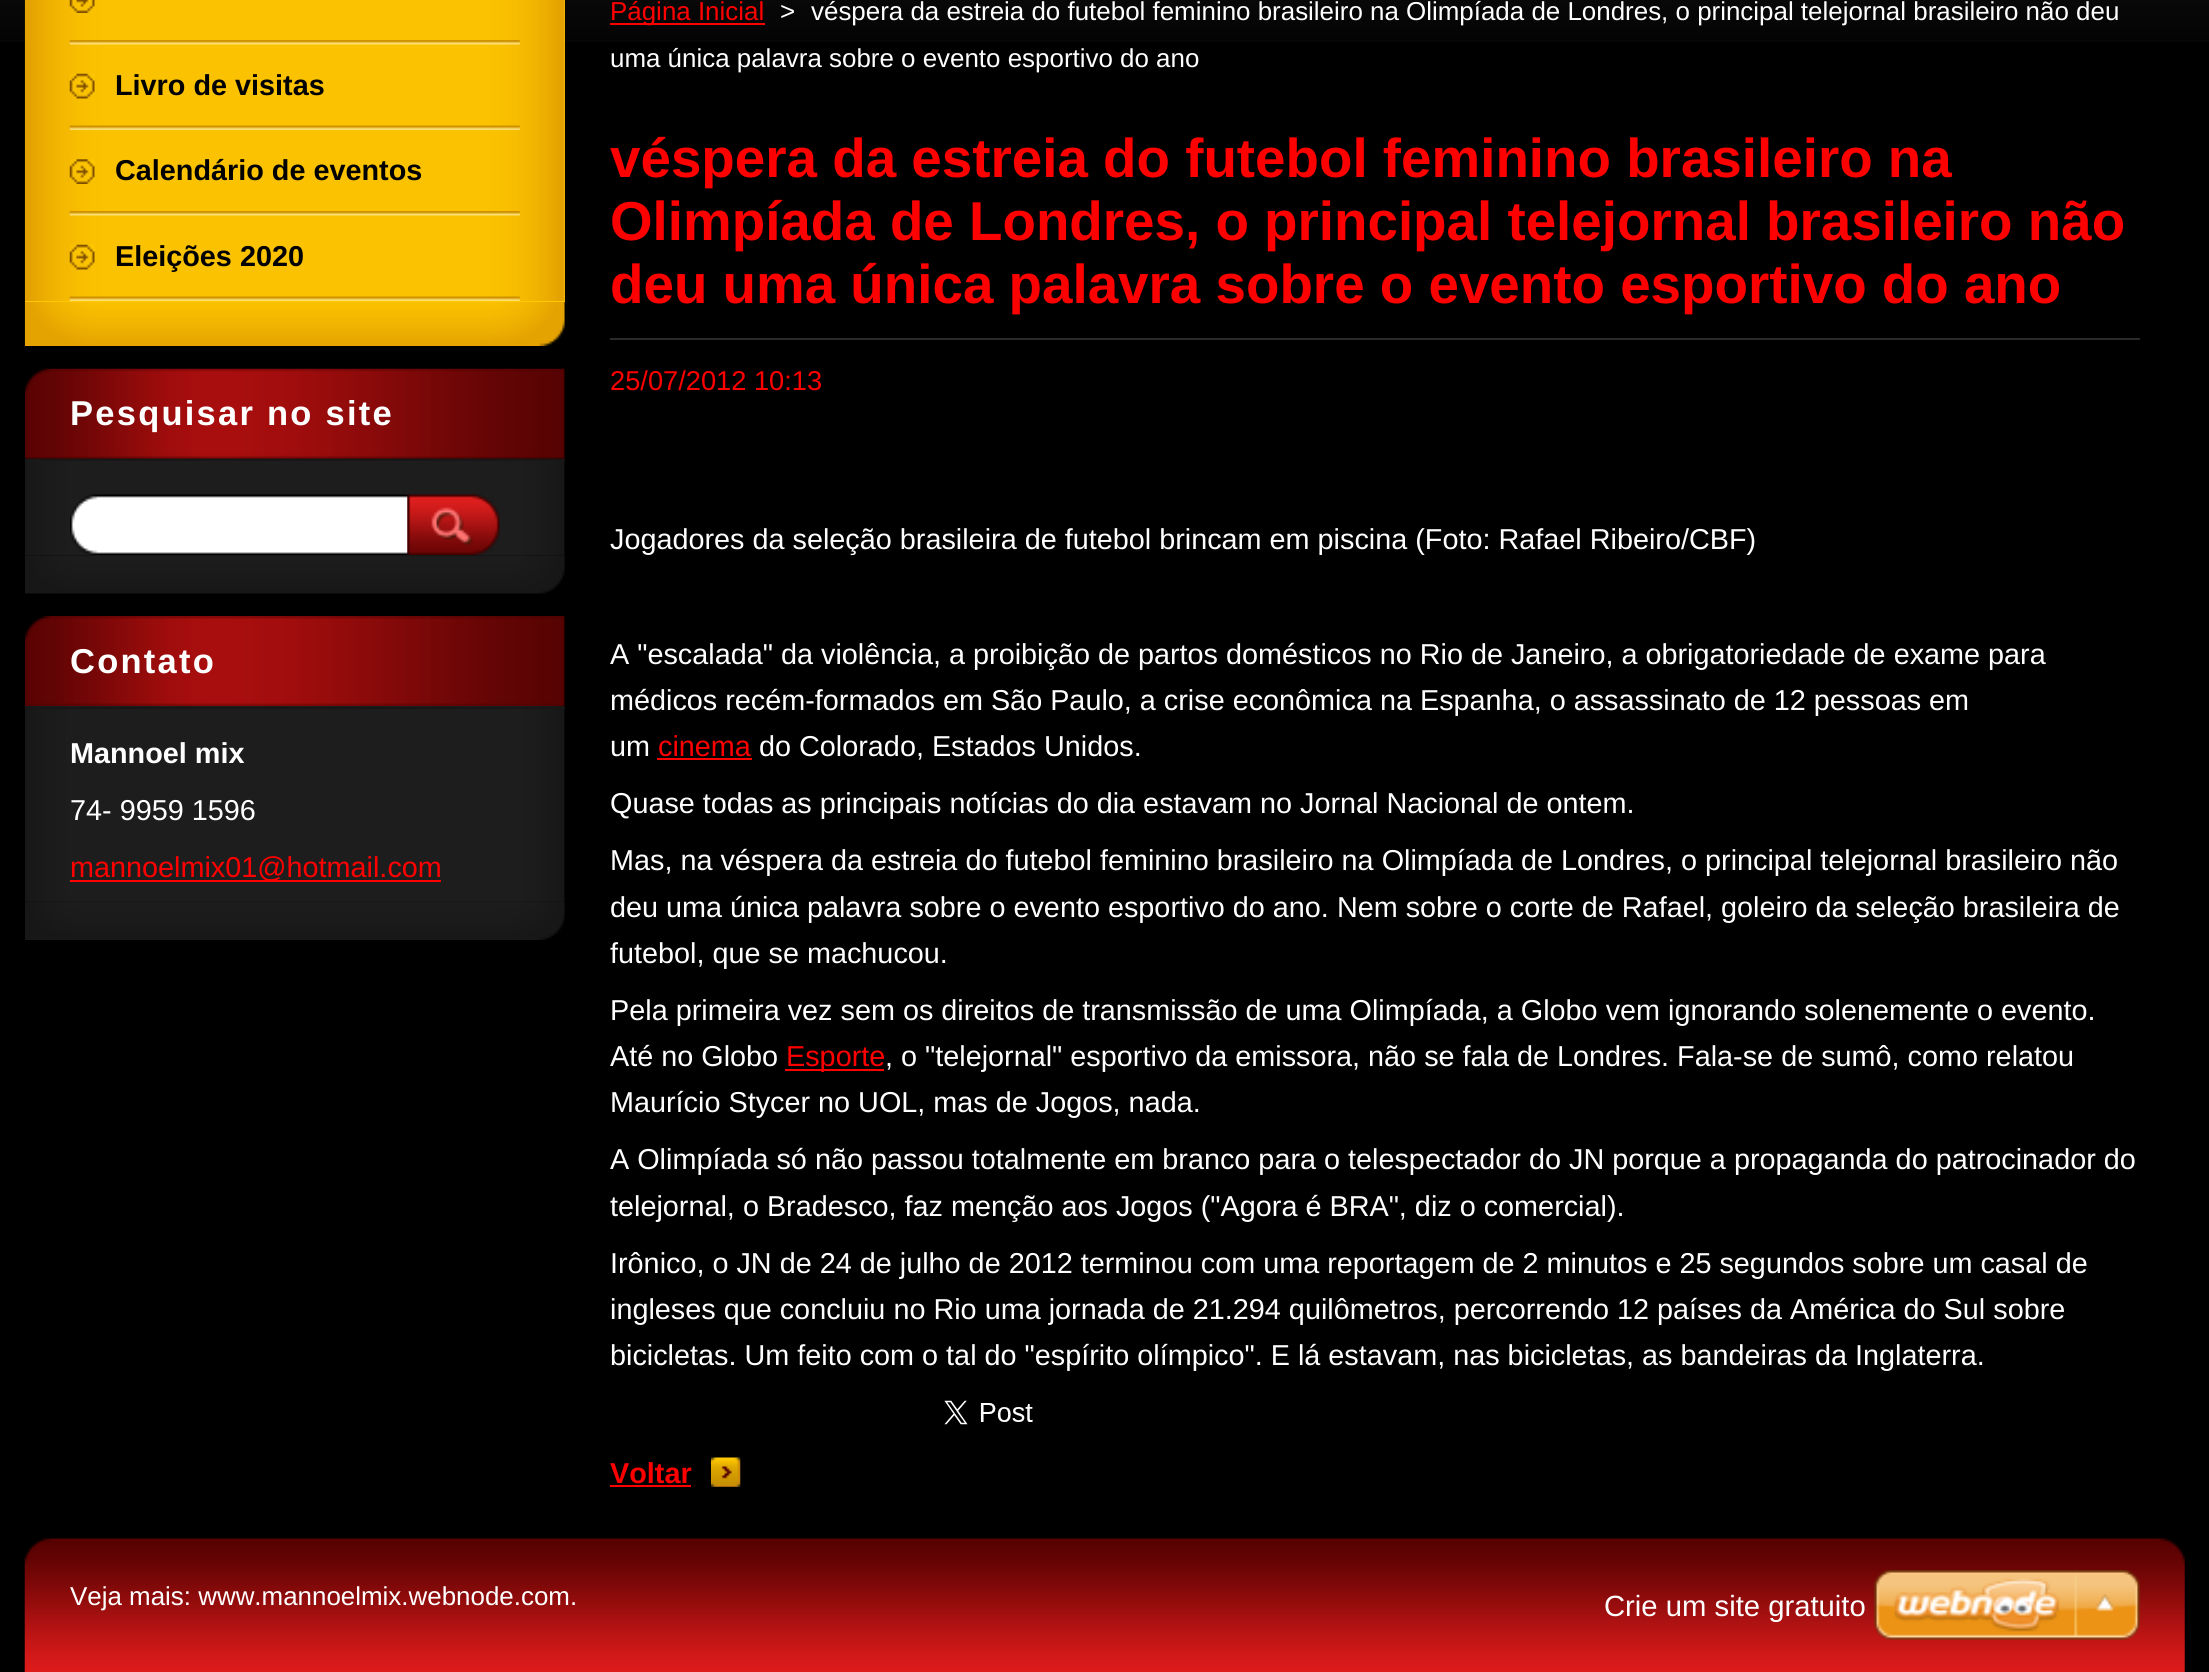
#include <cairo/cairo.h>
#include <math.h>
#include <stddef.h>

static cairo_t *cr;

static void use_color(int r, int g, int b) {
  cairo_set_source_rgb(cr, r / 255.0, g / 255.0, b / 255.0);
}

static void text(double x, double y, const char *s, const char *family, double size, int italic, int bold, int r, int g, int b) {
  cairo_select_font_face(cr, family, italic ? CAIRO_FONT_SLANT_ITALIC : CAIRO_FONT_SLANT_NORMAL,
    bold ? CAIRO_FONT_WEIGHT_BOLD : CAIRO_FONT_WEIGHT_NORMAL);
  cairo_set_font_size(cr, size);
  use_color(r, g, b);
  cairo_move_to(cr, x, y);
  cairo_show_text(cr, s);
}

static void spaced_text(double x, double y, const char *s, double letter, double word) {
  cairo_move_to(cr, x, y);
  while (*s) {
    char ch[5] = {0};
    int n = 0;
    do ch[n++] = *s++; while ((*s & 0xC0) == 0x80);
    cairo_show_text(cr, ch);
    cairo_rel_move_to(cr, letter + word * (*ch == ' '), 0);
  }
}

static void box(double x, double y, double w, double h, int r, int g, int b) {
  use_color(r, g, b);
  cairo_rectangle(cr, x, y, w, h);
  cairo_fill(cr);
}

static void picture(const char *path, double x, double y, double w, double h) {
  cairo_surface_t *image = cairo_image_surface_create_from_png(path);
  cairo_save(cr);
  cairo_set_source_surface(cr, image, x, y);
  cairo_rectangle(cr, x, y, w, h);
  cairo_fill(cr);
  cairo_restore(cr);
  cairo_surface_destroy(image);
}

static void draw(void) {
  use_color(0, 0, 0);
  cairo_paint(cr);
  picture("img_01.png", 0, 0, 2209, 42);
  picture("img_02.png", 24, 301, 541, 45);
  box(25, 0, 540, 302, 255, 200, 0);
  picture("img_03.png", 24, 0, 541, 301);
  picture("img_04.png", 69, 40, 451, 5);
  picture("img_05.png", 69, 0, 26, 13);
  picture("img_06.png", 69, 125, 451, 5);
  picture("img_07.png", 69, 73, 26, 26);
  picture("img_04.png", 69, 211, 451, 5);
  picture("img_08.png", 69, 159, 26, 25);
  picture("img_06.png", 69, 296, 451, 5);
  picture("img_07.png", 69, 244, 26, 26);
  picture("img_09.png", 25, 555, 540, 39);
  picture("img_11.png", 25, 458, 540, 97);
  picture("img_10.png", 25, 368, 540, 91);
  box(39, 459, 526, 2, 23, 23, 23);
  picture("img_12.png", 70, 494, 340, 61);
  picture("img_13.png", 407, 494, 93, 61);
  picture("img_14.png", 25, 901, 540, 39);
  picture("img_15.png", 25, 616, 540, 90);
  picture("img_16.png", 25, 706, 540, 196);
  box(39, 707, 526, 2, 23, 23, 23);
  box(70, 880, 256, 2, 255, 0, 0);
  box(326, 880, 115, 2, 255, 0, 0);
  box(610, 23, 155, 2, 255, 0, 0);
  box(610, 338, 1530, 2, 42, 42, 42);
  box(657, 758, 95, 2, 255, 0, 0);
  box(785, 1069, 99, 2, 255, 0, 0);
  picture("img_17.png", 944, 1400, 89, 25);
  picture("img_18.png", 711, 1457, 30, 30);
  box(610, 1485, 81, 2, 255, 0, 0);
  picture("img_19.png", 24, 1538, 2161, 134);
  picture("img_20.png", 1874, 1570, 266, 70);
  text(115, 95, "Livro de visitas", "Liberation Sans", 28.8, 0, 1, 0, 0, 0);
  text(115, 180, "Calendário de eventos", "Liberation Sans", 28.8, 0, 1, 0, 0, 0);
  text(115, 266, "Eleições 2020", "Liberation Sans", 28.8, 0, 1, 0, 0, 0);
  cairo_set_font_size(cr, 34.5);
  use_color(255, 255, 255);
  spaced_text(70, 425, "Pesquisar no site", 2.25, 0);
  spaced_text(70, 673, "Contato", 2.25, 0);
  text(70, 763, "Mannoel mix", "Liberation Sans", 28.8, 0, 1, 255, 255, 255);
  text(70, 820, "74- 9959 1596", "Liberation Sans", 28.8, 0, 0, 255, 255, 255);
  text(70, 877, "mannoelmix01@hotmail.com", "Liberation Sans", 28.8, 0, 0, 255, 0, 0);
  text(610, 20, "Página Inicial", "Liberation Sans", 25.92, 0, 0, 255, 0, 0);
  text(780, 20, ">", "Liberation Sans", 25.92, 0, 0, 255, 255, 255);
  text(811, 20, "véspera da estreia do futebol feminino brasileiro na Olimpíada de Londres, o principal telejornal brasileiro não deu", "Liberation Sans", 25.92, 0, 0, 255, 255, 255);
  text(610, 67, "uma única palavra sobre o evento esportivo do ano", "Liberation Sans", 25.92, 0, 0, 255, 255, 255);
  text(610, 177, "véspera da estreia do futebol feminino brasileiro na", "Liberation Sans", 54.75, 0, 1, 255, 0, 0);
  text(610, 240, "Olimpíada de Londres, o principal telejornal brasileiro não", "Liberation Sans", 54.75, 0, 1, 255, 0, 0);
  text(610, 303, "deu uma única palavra sobre o evento esportivo do ano", "Liberation Sans", 54.75, 0, 1, 255, 0, 0);
  text(610, 390, "25/07/2012 10:13", "Liberation Sans", 27.25, 0, 0, 255, 0, 0);
  text(610, 549, "Jogadores da seleção brasileira de futebol brincam em piscina (Foto: Rafael Ribeiro/CBF)", "Liberation Sans", 28.8, 0, 0, 255, 255, 255);
  text(610, 664, "A \"escalada\" da violência, a proibição de partos domésticos no Rio de Janeiro, a obrigatoriedade de exame para", "Liberation Sans", 28.8, 0, 0, 255, 255, 255);
  text(610, 710, "médicos recém-formados em São Paulo, a crise econômica na Espanha, o assassinato de 12 pessoas em", "Liberation Sans", 28.8, 0, 0, 255, 255, 255);
  text(610, 756, "um", "Liberation Sans", 28.8, 0, 0, 255, 255, 255);
  text(658, 756, "cinema", "Liberation Sans", 28.8, 0, 0, 255, 0, 0);
  text(759, 756, "do Colorado, Estados Unidos.", "Liberation Sans", 28.8, 0, 0, 255, 255, 255);
  text(610, 813, "Quase todas as principais notícias do dia estavam no Jornal Nacional de ontem.", "Liberation Sans", 28.8, 0, 0, 255, 255, 255);
  text(610, 870, "Mas, na véspera da estreia do futebol feminino brasileiro na Olimpíada de Londres, o principal telejornal brasileiro não", "Liberation Sans", 28.8, 0, 0, 255, 255, 255);
  text(610, 917, "deu uma única palavra sobre o evento esportivo do ano. Nem sobre o corte de Rafael, goleiro da seleção brasileira de", "Liberation Sans", 28.8, 0, 0, 255, 255, 255);
  text(610, 963, "futebol, que se machucou.", "Liberation Sans", 28.8, 0, 0, 255, 255, 255);
  text(610, 1020, "Pela primeira vez sem os direitos de transmissão de uma Olimpíada, a Globo vem ignorando solenemente o evento.", "Liberation Sans", 28.8, 0, 0, 255, 255, 255);
  text(610, 1066, "Até no Globo", "Liberation Sans", 28.8, 0, 0, 255, 255, 255);
  text(786, 1066, "Esporte", "Liberation Sans", 28.8, 0, 0, 255, 0, 0);
  text(885, 1066, ", o \"telejornal\" esportivo da emissora, não se fala de Londres. Fala-se de sumô, como relatou", "Liberation Sans", 28.8, 0, 0, 255, 255, 255);
  text(610, 1112, "Maurício Stycer no UOL, mas de Jogos, nada.", "Liberation Sans", 28.8, 0, 0, 255, 255, 255);
  text(610, 1169, "A Olimpíada só não passou totalmente em branco para o telespectador do JN porque a propaganda do patrocinador do", "Liberation Sans", 28.8, 0, 0, 255, 255, 255);
  text(610, 1216, "telejornal, o Bradesco, faz menção aos Jogos (\"Agora é BRA\", diz o comercial).", "Liberation Sans", 28.8, 0, 0, 255, 255, 255);
  text(610, 1273, "Irônico, o JN de 24 de julho de 2012 terminou com uma reportagem de 2 minutos e 25 segundos sobre um casal de", "Liberation Sans", 28.8, 0, 0, 255, 255, 255);
  text(610, 1319, "ingleses que concluiu no Rio uma jornada de 21.294 quilômetros, percorrendo 12 países da América do Sul sobre", "Liberation Sans", 28.8, 0, 0, 255, 255, 255);
  text(610, 1365, "bicicletas. Um feito com o tal do \"espírito olímpico\". E lá estavam, nas bicicletas, as bandeiras da Inglaterra.", "Liberation Sans", 28.8, 0, 0, 255, 255, 255);
  text(610, 1483, "Voltar", "Liberation Sans", 28.8, 0, 1, 255, 0, 0);
  text(70, 1605, "Veja mais: www.mannoelmix.webnode.com.", "Liberation Sans", 25.92, 0, 0, 255, 255, 255);
  text(1604, 1616, "Crie um site gratuito", "Liberation Sans", 29.25, 0, 0, 255, 255, 255);
}

int main(void) {
  cairo_surface_t *surface = cairo_image_surface_create(CAIRO_FORMAT_RGB24, 2209, 1672);
  cr = cairo_create(surface);
  cairo_font_options_t *options = cairo_font_options_create();
  cairo_font_options_set_hint_metrics(options, CAIRO_HINT_METRICS_OFF);
  cairo_font_options_set_hint_style(options, CAIRO_HINT_STYLE_NONE);
  cairo_set_font_options(cr, options);
  cairo_set_miter_limit(cr, 4);
  draw();
  cairo_surface_write_to_png(surface, "out.png");
  cairo_font_options_destroy(options);
  cairo_destroy(cr);
  cairo_surface_destroy(surface);
  return 0;
}
